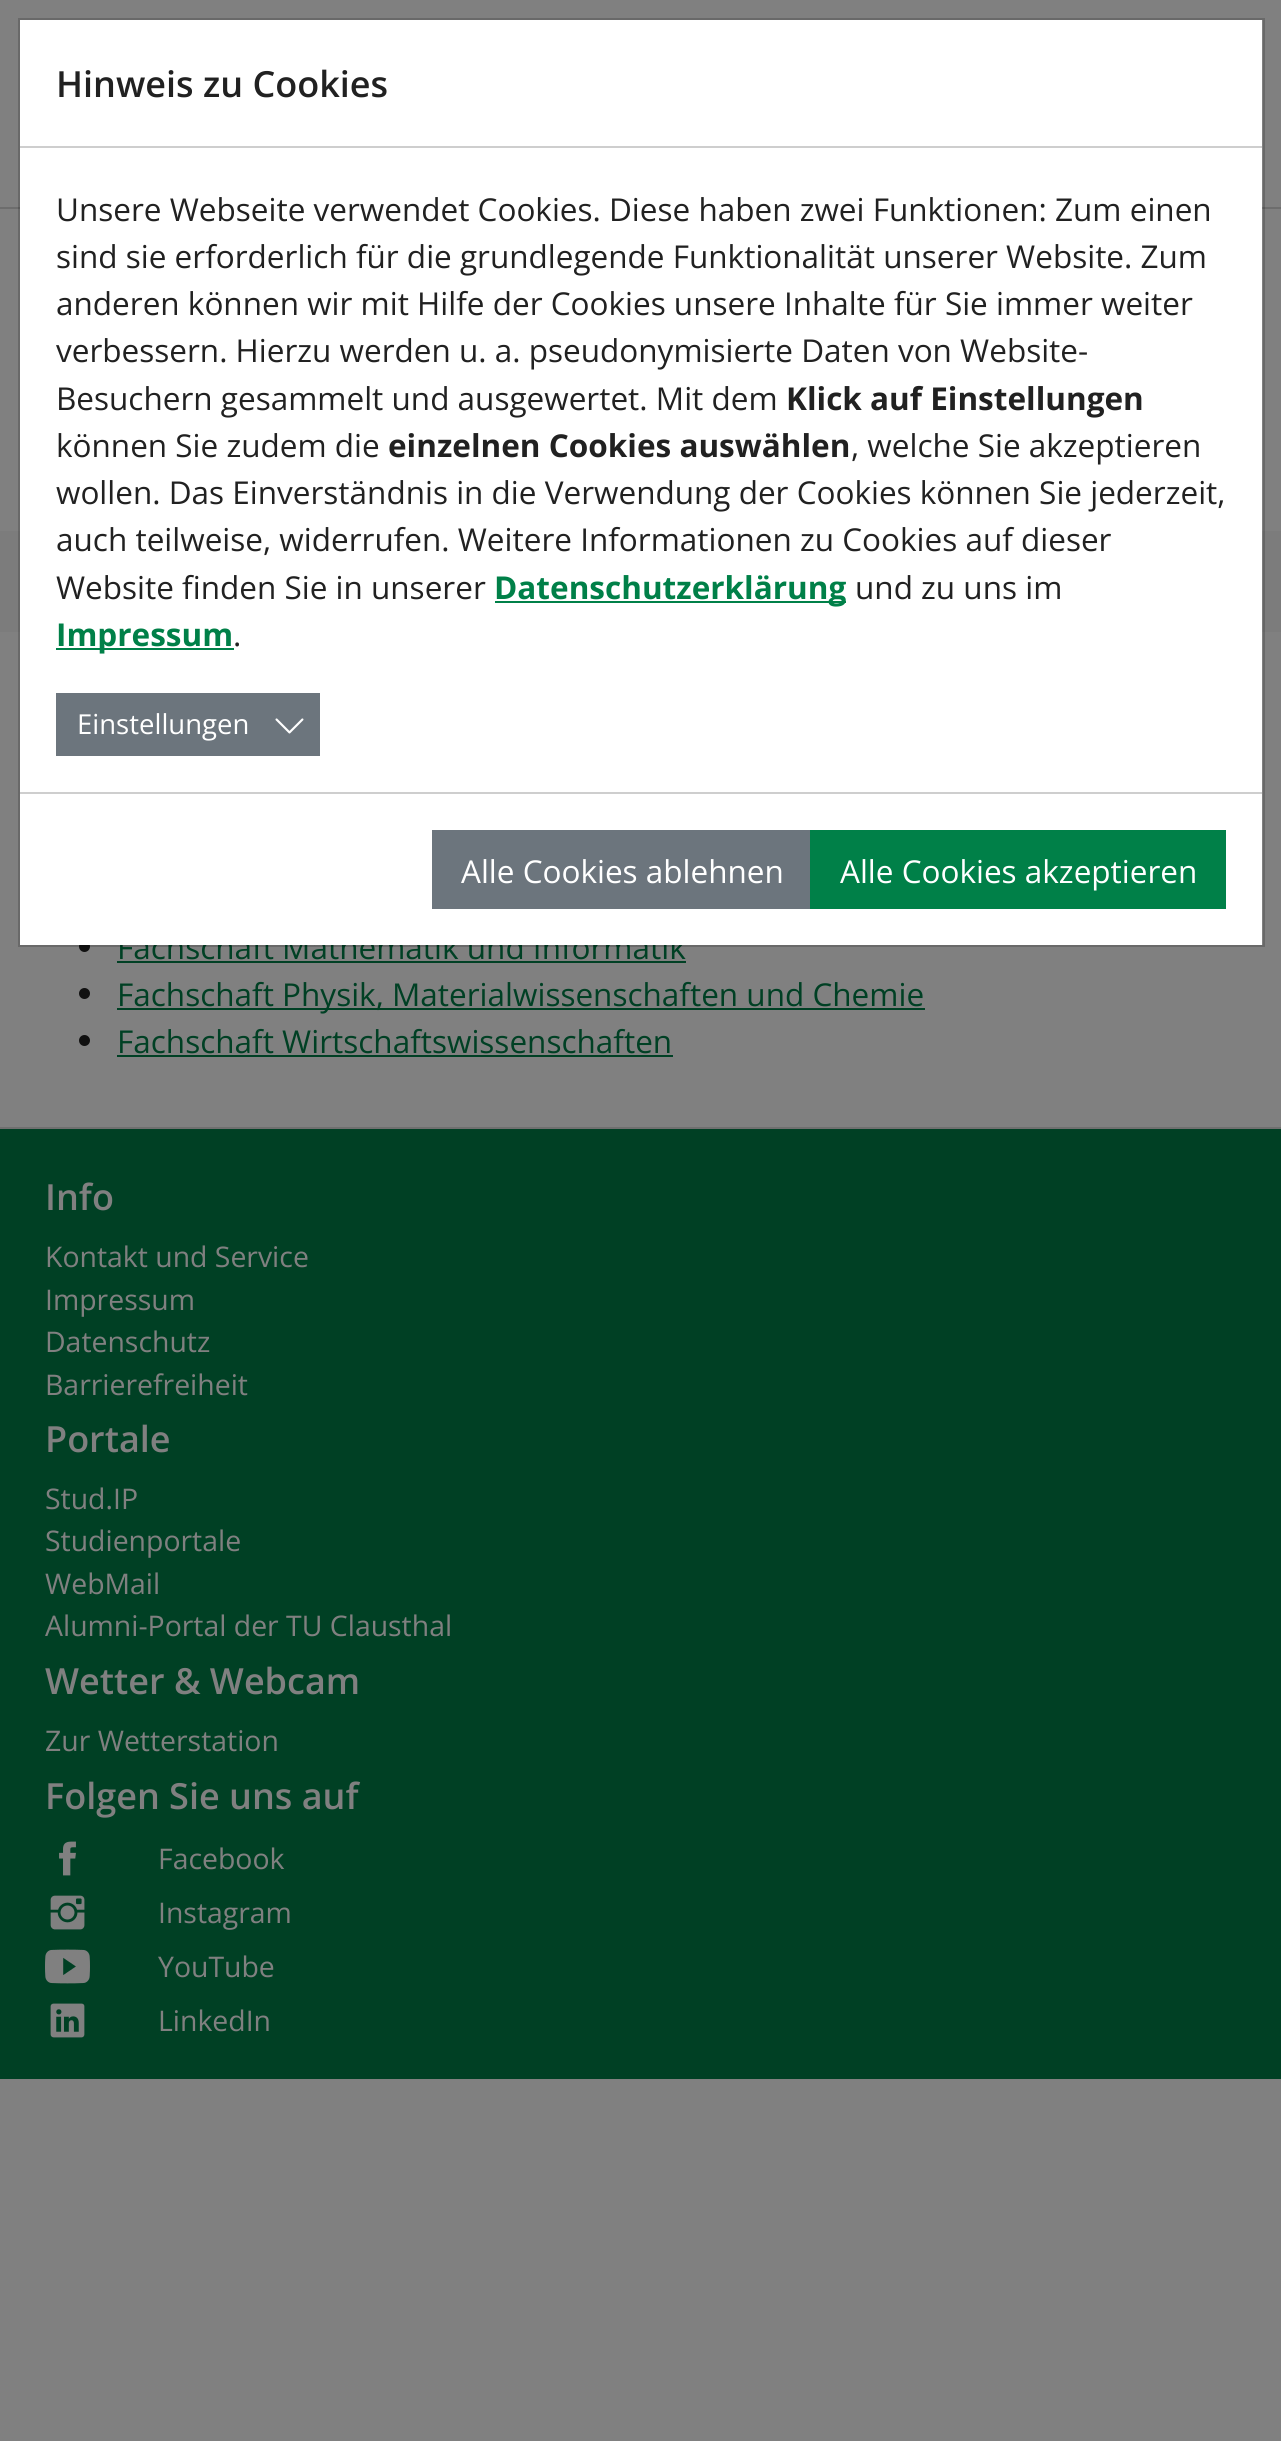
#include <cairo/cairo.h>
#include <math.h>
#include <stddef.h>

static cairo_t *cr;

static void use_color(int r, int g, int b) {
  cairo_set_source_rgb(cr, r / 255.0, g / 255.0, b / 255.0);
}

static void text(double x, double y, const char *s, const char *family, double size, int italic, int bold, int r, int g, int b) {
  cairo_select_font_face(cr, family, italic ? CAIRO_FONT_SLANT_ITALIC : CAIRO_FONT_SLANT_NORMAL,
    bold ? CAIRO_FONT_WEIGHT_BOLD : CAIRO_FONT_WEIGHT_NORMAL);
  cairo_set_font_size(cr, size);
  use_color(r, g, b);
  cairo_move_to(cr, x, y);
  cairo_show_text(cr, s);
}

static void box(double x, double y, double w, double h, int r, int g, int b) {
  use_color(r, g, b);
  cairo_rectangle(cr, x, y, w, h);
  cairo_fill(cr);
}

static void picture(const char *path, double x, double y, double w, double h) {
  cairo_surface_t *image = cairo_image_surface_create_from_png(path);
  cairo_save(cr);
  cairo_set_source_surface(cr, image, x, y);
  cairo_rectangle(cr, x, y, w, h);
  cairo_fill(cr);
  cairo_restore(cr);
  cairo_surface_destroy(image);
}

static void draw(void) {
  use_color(128, 128, 128);
  cairo_paint(cr);
  use_color(109, 109, 109);
  cairo_new_path(cr);
  cairo_move_to(cr, 0, 207);
  cairo_line_to(cr, 0, 209);
  cairo_line_to(cr, 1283, 209);
  cairo_line_to(cr, 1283, 2);
  cairo_line_to(cr, 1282, 2);
  cairo_line_to(cr, 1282, 207);
  cairo_close_path(cr);
  cairo_fill(cr);
  box(0, 531, 1281, 101, 124, 124, 124);
  use_color(17, 17, 17);
  cairo_arc(cr, 84.5, 946.5, 5.5, 0, 2 * M_PI);
  cairo_fill(cr);
  box(117, 961, 569, 2, 0, 64, 36);
  use_color(17, 17, 17);
  cairo_arc(cr, 84.5, 993.5, 5.5, 0, 2 * M_PI);
  cairo_fill(cr);
  box(117, 1008, 808, 2, 0, 64, 36);
  use_color(17, 17, 17);
  cairo_arc(cr, 84.5, 1040.5, 5.5, 0, 2 * M_PI);
  cairo_fill(cr);
  box(117, 1055, 556, 2, 0, 64, 36);
  box(0, 1129, 1281, 950, 0, 64, 36);
  box(0, 1127, 1281, 2, 111, 111, 111);
  picture("img_02.png", 59, 1841, 17, 35);
  picture("img_03.png", 50, 1895, 35, 35);
  picture("img_04.png", 45, 1949, 45, 35);
  picture("img_05.png", 50, 2003, 35, 35);
  text(117, 959, "Fachschaft Mathematik und Informatik", "Open Sans", 31.5, 0, 0, 0, 64, 36);
  box(20, 20, 1242, 925, 255, 255, 255);
  cairo_rectangle(cr, 19, 19, 1245, 927);
  cairo_set_source_rgba(cr, 0, 0, 0, 0.18);
  cairo_stroke(cr);
  box(810, 830, 416, 79, 0, 128, 72);
  text(840, 883, "Alle Cookies akzeptieren", "Open Sans", 31.5, 0, 0, 255, 255, 255);
  box(432, 830, 378, 79, 108, 117, 125);
  text(461, 883, "Alle Cookies ablehnen", "Open Sans", 31.5, 0, 0, 255, 255, 255);
  box(56, 693, 264, 63, 108, 117, 125);
  picture("img_01.png", 275, 718, 29, 16);
  text(77, 734, "Einstellungen", "Open Sans", 27.5, 0, 0, 255, 255, 255);
  text(233, 646, ".", "Open Sans", 31.5, 0, 0, 33, 33, 33);
  box(56, 648, 178, 2, 0, 128, 72);
  text(56, 646, "Impressum", "Open Sans", 31.5, 0, 1, 0, 128, 72);
  text(855, 599, "und zu uns im", "Open Sans", 31.5, 0, 0, 33, 33, 33);
  box(495, 601, 351, 2, 0, 128, 72);
  text(494, 599, "Datenschutzerklärung", "Open Sans", 31.5, 0, 1, 0, 128, 72);
  text(56, 599, "Website finden Sie in unserer", "Open Sans", 31.5, 0, 0, 33, 33, 33);
  text(56, 551, "auch teilweise, widerrufen. Weitere Informationen zu Cookies auf dieser", "Open Sans", 31.5, 0, 0, 33, 33, 33);
  text(56, 504, "wollen. Das Einverständnis in die Verwendung der Cookies können Sie jederzeit,", "Open Sans", 31.5, 0, 0, 33, 33, 33);
  text(851, 457, ", welche Sie akzeptieren", "Open Sans", 31.5, 0, 0, 33, 33, 33);
  text(388, 457, "einzelnen Cookies auswählen", "Open Sans", 31.5, 0, 1, 33, 33, 33);
  text(56, 457, "können Sie zudem die", "Open Sans", 31.5, 0, 0, 33, 33, 33);
  text(786, 410, "Klick auf Einstellungen", "Open Sans", 31.5, 0, 1, 33, 33, 33);
  text(56, 410, "Besuchern gesammelt und ausgewertet. Mit dem", "Open Sans", 31.5, 0, 0, 33, 33, 33);
  text(56, 362, "verbessern. Hierzu werden u. a. pseudonymisierte Daten von Website-", "Open Sans", 31.5, 0, 0, 33, 33, 33);
  text(56, 315, "anderen können wir mit Hilfe der Cookies unsere Inhalte für Sie immer weiter", "Open Sans", 31.5, 0, 0, 33, 33, 33);
  text(56, 268, "sind sie erforderlich für die grundlegende Funktionalität unserer Website. Zum", "Open Sans", 31.5, 0, 0, 33, 33, 33);
  text(56, 221, "Unsere Webseite verwendet Cookies. Diese haben zwei Funktionen: Zum einen", "Open Sans", 31.5, 0, 0, 33, 33, 33);
  box(20, 792, 1242, 2, 206, 206, 206);
  text(56, 97, "Hinweis zu Cookies", "Open Sans SemiBold", 36, 0, 0, 33, 33, 33);
  box(20, 146, 1242, 2, 206, 206, 206);
  text(117, 1006, "Fachschaft Physik, Materialwissenschaften und Chemie", "Open Sans", 31.5, 0, 0, 0, 64, 36);
  text(117, 1053, "Fachschaft Wirtschaftswissenschaften", "Open Sans", 31.5, 0, 0, 0, 64, 36);
  text(45, 1210, "Info", "Open Sans SemiBold", 36, 0, 0, 128, 128, 128);
  text(45, 1267, "Kontakt und Service", "Open Sans", 28.4, 0, 0, 128, 128, 128);
  text(45, 1310, "Impressum", "Open Sans", 28.4, 0, 0, 128, 128, 128);
  text(45, 1352, "Datenschutz", "Open Sans", 28.4, 0, 0, 128, 128, 128);
  text(45, 1395, "Barrierefreiheit", "Open Sans", 28.4, 0, 0, 128, 128, 128);
  text(45, 1452, "Portale", "Open Sans SemiBold", 36, 0, 0, 128, 128, 128);
  text(45, 1509, "Stud.IP", "Open Sans", 28.4, 0, 0, 128, 128, 128);
  text(45, 1551, "Studienportale", "Open Sans", 28.4, 0, 0, 128, 128, 128);
  text(45, 1594, "WebMail", "Open Sans", 28.4, 0, 0, 128, 128, 128);
  text(45, 1636, "Alumni-Portal der TU Clausthal", "Open Sans", 28.4, 0, 0, 128, 128, 128);
  text(45, 1694, "Wetter & Webcam", "Open Sans SemiBold", 36, 0, 0, 128, 128, 128);
  text(45, 1751, "Zur Wetterstation", "Open Sans", 28.4, 0, 0, 128, 128, 128);
  text(45, 1809, "Folgen Sie uns auf", "Open Sans SemiBold", 36, 0, 0, 128, 128, 128);
  text(158, 1869, "Facebook", "Open Sans", 28.4, 0, 0, 128, 128, 128);
  text(158, 1923, "Instagram", "Open Sans", 28.4, 0, 0, 128, 128, 128);
  text(158, 1977, "YouTube", "Open Sans", 28.4, 0, 0, 128, 128, 128);
  text(158, 2031, "LinkedIn", "Open Sans", 28.4, 0, 0, 128, 128, 128);
}

int main(void) {
  cairo_surface_t *surface = cairo_image_surface_create(CAIRO_FORMAT_RGB24, 1281, 2441);
  cr = cairo_create(surface);
  cairo_font_options_t *options = cairo_font_options_create();
  cairo_font_options_set_hint_metrics(options, CAIRO_HINT_METRICS_OFF);
  cairo_font_options_set_hint_style(options, CAIRO_HINT_STYLE_NONE);
  cairo_set_font_options(cr, options);
  cairo_set_miter_limit(cr, 4);
  draw();
  cairo_surface_write_to_png(surface, "out.png");
  cairo_font_options_destroy(options);
  cairo_destroy(cr);
  cairo_surface_destroy(surface);
  return 0;
}
